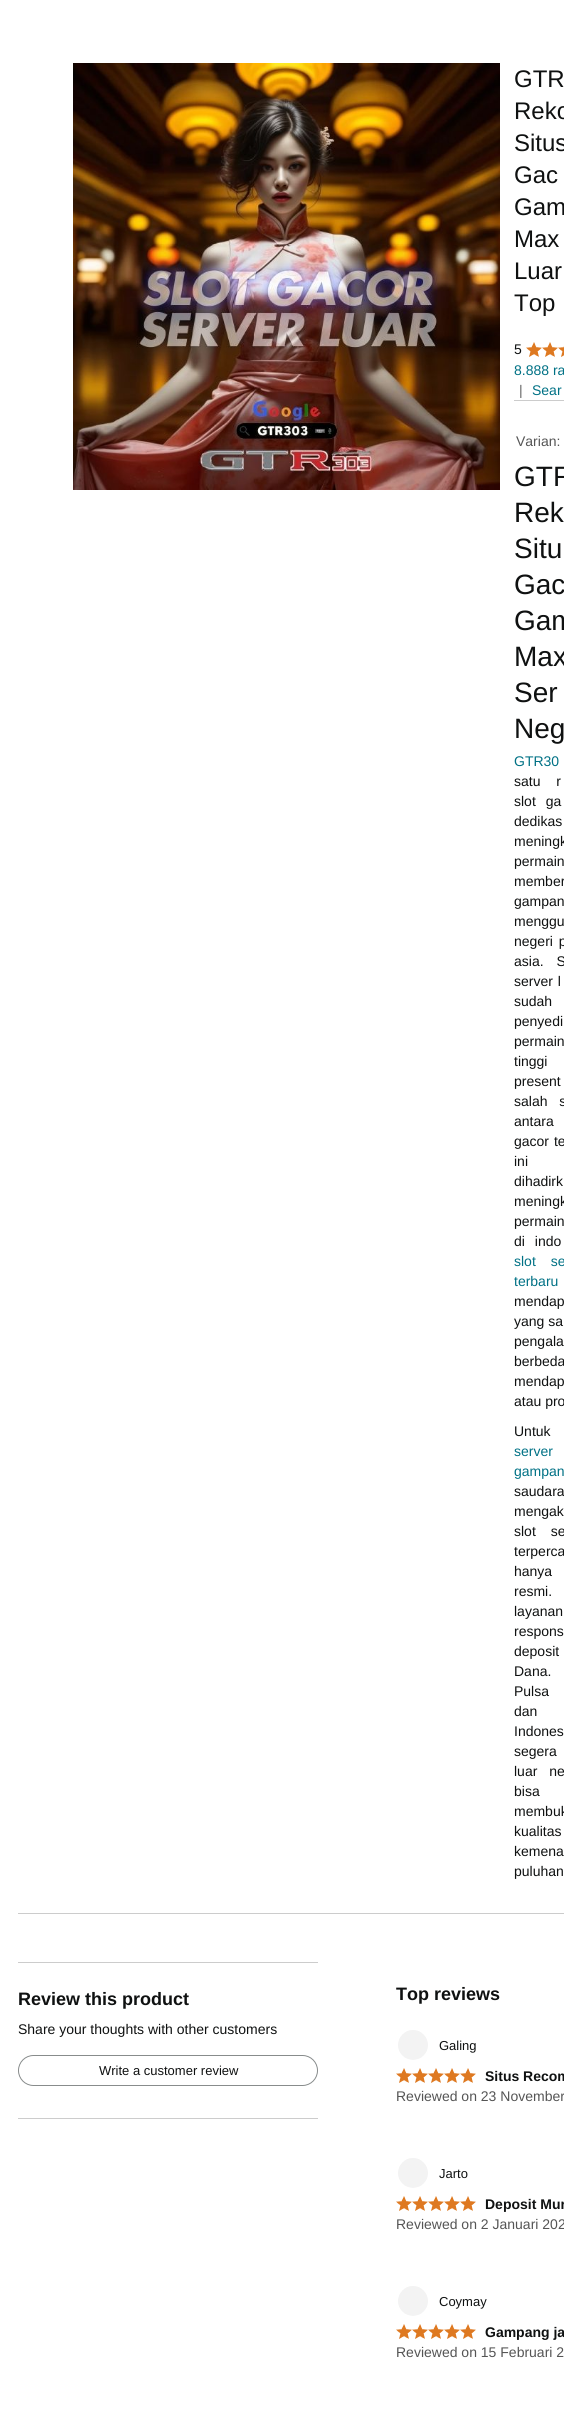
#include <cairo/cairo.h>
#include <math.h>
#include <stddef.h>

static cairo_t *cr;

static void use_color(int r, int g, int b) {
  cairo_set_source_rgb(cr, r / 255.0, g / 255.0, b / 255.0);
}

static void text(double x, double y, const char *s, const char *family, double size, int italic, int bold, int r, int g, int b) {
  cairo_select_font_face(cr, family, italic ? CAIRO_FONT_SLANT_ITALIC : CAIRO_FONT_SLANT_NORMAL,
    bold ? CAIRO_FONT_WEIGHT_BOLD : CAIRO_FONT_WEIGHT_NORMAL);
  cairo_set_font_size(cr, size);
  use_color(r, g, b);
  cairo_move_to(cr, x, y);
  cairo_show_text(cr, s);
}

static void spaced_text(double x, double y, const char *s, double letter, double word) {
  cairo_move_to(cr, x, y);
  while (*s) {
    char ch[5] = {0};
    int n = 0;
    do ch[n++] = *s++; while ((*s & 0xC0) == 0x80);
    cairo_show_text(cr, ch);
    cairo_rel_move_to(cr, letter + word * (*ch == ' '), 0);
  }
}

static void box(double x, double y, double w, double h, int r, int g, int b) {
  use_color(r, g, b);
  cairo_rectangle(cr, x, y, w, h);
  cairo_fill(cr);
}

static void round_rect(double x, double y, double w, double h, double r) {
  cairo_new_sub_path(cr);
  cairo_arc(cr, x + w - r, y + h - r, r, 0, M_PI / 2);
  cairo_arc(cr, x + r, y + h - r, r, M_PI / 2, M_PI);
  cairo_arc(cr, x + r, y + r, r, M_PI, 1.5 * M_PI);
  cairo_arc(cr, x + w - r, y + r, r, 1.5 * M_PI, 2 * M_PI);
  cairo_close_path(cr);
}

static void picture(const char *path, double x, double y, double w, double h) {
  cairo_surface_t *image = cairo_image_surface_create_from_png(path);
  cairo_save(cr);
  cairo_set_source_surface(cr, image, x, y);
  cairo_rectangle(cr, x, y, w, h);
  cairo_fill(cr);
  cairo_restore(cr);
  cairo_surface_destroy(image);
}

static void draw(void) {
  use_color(255, 255, 255);
  cairo_paint(cr);
  picture("img_01.png", 73, 63, 427, 427);
  picture("img_02.png", 526, 342, 38, 15);
  box(514, 400, 50, 1, 204, 204, 204);
  box(18, 1913, 546, 1, 204, 204, 204);
  box(18, 1962, 300, 1, 204, 204, 204);
  round_rect(18.5, 2055.5, 299, 30, 15);
  use_color(136, 140, 140);
  cairo_set_line_width(cr, 1);
  cairo_stroke(cr);
  box(18, 2118, 300, 1, 204, 204, 204);
  picture("img_03.png", 398, 2030, 30, 30);
  picture("img_04.png", 396, 2068, 80, 15);
  picture("img_03.png", 398, 2158, 30, 30);
  picture("img_04.png", 396, 2196, 80, 15);
  picture("img_03.png", 398, 2286, 30, 30);
  picture("img_04.png", 396, 2324, 80, 15);
  text(514, 87, "GTR", "Liberation Sans", 24, 0, 0, 15, 17, 17);
  text(514, 119, "Reko", "Liberation Sans", 24, 0, 0, 15, 17, 17);
  text(514, 151, "Situs", "Liberation Sans", 24, 0, 0, 15, 17, 17);
  text(514, 183, "Gac", "Liberation Sans", 24, 0, 0, 15, 17, 17);
  text(514, 215, "Gam", "Liberation Sans", 24, 0, 0, 15, 17, 17);
  text(514, 247, "Max", "Liberation Sans", 24, 0, 0, 15, 17, 17);
  text(514, 279, "Luar", "Liberation Sans", 24, 0, 0, 15, 17, 17);
  text(514, 311, "Top", "Liberation Sans", 24, 0, 0, 15, 17, 17);
  text(514, 354, "5", "Liberation Sans", 14, 0, 0, 15, 17, 17);
  text(514, 375, "8.888 ra", "Liberation Sans", 14, 0, 0, 0, 113, 133);
  text(519, 395, "|", "Liberation Sans", 14, 0, 0, 102, 102, 102);
  text(532, 395, "Sear", "Liberation Sans", 14, 0, 0, 0, 113, 133);
  text(516, 446, "Varian:", "Liberation Sans", 14, 0, 0, 85, 85, 85);
  text(514, 486, "GTR", "Liberation Sans", 28, 0, 0, 15, 17, 17);
  text(514, 522, "Rek", "Liberation Sans", 28, 0, 0, 15, 17, 17);
  text(514, 558, "Situ", "Liberation Sans", 28, 0, 0, 15, 17, 17);
  text(514, 594, "Gac", "Liberation Sans", 28, 0, 0, 15, 17, 17);
  text(514, 630, "Gam", "Liberation Sans", 28, 0, 0, 15, 17, 17);
  text(514, 666, "Max", "Liberation Sans", 28, 0, 0, 15, 17, 17);
  text(514, 702, "Ser", "Liberation Sans", 28, 0, 0, 15, 17, 17);
  text(514, 738, "Neg", "Liberation Sans", 28, 0, 0, 15, 17, 17);
  text(514, 766, "GTR30", "Liberation Sans", 14, 0, 0, 0, 113, 133);
  use_color(15, 17, 17);
  spaced_text(514, 786, "satu r", 0, 12);
  spaced_text(514, 806, "slot ga", 0, 6);
  spaced_text(514, 826, "dedikas", 0, 18);
  spaced_text(514, 846, "meningk", 0, 36);
  spaced_text(514, 866, "permain", 0, 51);
  spaced_text(514, 886, "member", 0, 28);
  spaced_text(514, 906, "gampan", 0, 58);
  spaced_text(514, 926, "menggu", 0, 4);
  spaced_text(514, 946, "negeri p", 0, 2);
  spaced_text(514, 966, "asia. S", 0, 9);
  spaced_text(514, 986, "server l", 0, 1);
  spaced_text(514, 1006, "sudah", 0, 13);
  spaced_text(514, 1026, "penyedi", 0, 52);
  spaced_text(514, 1046, "permain", 0, 1);
  spaced_text(514, 1066, "tinggi", 0, 7);
  spaced_text(514, 1086, "present", 0, 14);
  spaced_text(514, 1106, "salah s", 0, 8);
  spaced_text(514, 1126, "antara", 0, 7);
  spaced_text(514, 1146, "gacor te", 0, 1);
  spaced_text(514, 1166, "ini", 0, 34);
  spaced_text(514, 1186, "dihadirk", 0, 65);
  spaced_text(514, 1206, "meningk", 0, 36);
  spaced_text(514, 1226, "permain", 0, 3);
  spaced_text(514, 1246, "di indo", 0, 6);
  use_color(0, 113, 133);
  spaced_text(514, 1266, "slot se", 0, 11);
  text(514, 1286, "terbaru", "Liberation Sans", 14, 0, 0, 0, 113, 133);
  use_color(15, 17, 17);
  spaced_text(514, 1306, "mendap", 0, 4);
  text(514, 1326, "yang sa", "Liberation Sans", 14, 0, 0, 15, 17, 17);
  spaced_text(514, 1346, "pengala", 0, 36);
  spaced_text(514, 1366, "berbeda", 0, 74);
  spaced_text(514, 1386, "mendap", 0, 6);
  text(514, 1406, "atau pro", "Liberation Sans", 14, 0, 0, 15, 17, 17);
  spaced_text(514, 1436, "Untuk", 0, 14);
  use_color(0, 113, 133);
  spaced_text(514, 1456, "server", 0, 29);
  spaced_text(514, 1476, "gampan", 0, 54);
  use_color(15, 17, 17);
  spaced_text(514, 1496, "saudara", 0, 87);
  text(514, 1516, "mengak", "Liberation Sans", 14, 0, 0, 15, 17, 17);
  spaced_text(514, 1536, "slot se", 0, 11);
  spaced_text(514, 1556, "terperca", 0, 7);
  spaced_text(514, 1576, "hanya", 0, 8);
  spaced_text(514, 1596, "resmi.", 0, 6);
  spaced_text(514, 1616, "layanan", 0, 4);
  spaced_text(514, 1636, "respons", 0, 16);
  spaced_text(514, 1656, "deposit", 0, 4);
  spaced_text(514, 1676, "Dana.", 0, 5);
  spaced_text(514, 1696, "Pulsa", 0, 11);
  spaced_text(514, 1716, "dan", 0, 31);
  spaced_text(514, 1736, "Indones", 0, 38);
  spaced_text(514, 1756, "segera", 0, 7);
  spaced_text(514, 1776, "luar ne", 0, 8);
  spaced_text(514, 1796, "bisa", 0, 81);
  spaced_text(514, 1816, "membuk", 0, 14);
  spaced_text(514, 1836, "kualitas", 0, 2);
  spaced_text(514, 1856, "kemena", 0, 24);
  text(514, 1876, "puluhan", "Liberation Sans", 14, 0, 0, 15, 17, 17);
  text(18, 2005, "Review this product", "Liberation Sans", 18, 0, 1, 15, 17, 17);
  text(18, 2034, "Share your thoughts with other customers", "Liberation Sans", 14, 0, 0, 15, 17, 17);
  text(99, 2075, "Write a customer review", "Liberation Sans", 13, 0, 0, 15, 17, 17);
  text(396, 2000, "Top reviews", "Liberation Sans", 18, 0, 1, 15, 17, 17);
  text(439, 2050, "Galing", "Liberation Sans", 13, 0, 0, 15, 17, 17);
  text(485, 2081, "Situs Recom", "Liberation Sans", 14, 0, 1, 15, 17, 17);
  text(396, 2101, "Reviewed on 23 November", "Liberation Sans", 14, 0, 0, 85, 85, 85);
  text(439, 2178, "Jarto", "Liberation Sans", 13, 0, 0, 15, 17, 17);
  text(485, 2209, "Deposit Mur", "Liberation Sans", 14, 0, 1, 15, 17, 17);
  text(396, 2229, "Reviewed on 2 Januari 202", "Liberation Sans", 14, 0, 0, 85, 85, 85);
  text(439, 2306, "Coymay", "Liberation Sans", 13, 0, 0, 15, 17, 17);
  text(485, 2337, "Gampang ja", "Liberation Sans", 14, 0, 1, 15, 17, 17);
  text(396, 2357, "Reviewed on 15 Februari 2", "Liberation Sans", 14, 0, 0, 85, 85, 85);
}

int main(void) {
  cairo_surface_t *surface = cairo_image_surface_create(CAIRO_FORMAT_RGB24, 564, 2414);
  cr = cairo_create(surface);
  cairo_font_options_t *options = cairo_font_options_create();
  cairo_font_options_set_hint_metrics(options, CAIRO_HINT_METRICS_OFF);
  cairo_font_options_set_hint_style(options, CAIRO_HINT_STYLE_NONE);
  cairo_set_font_options(cr, options);
  cairo_set_miter_limit(cr, 4);
  draw();
  cairo_surface_write_to_png(surface, "out.png");
  cairo_font_options_destroy(options);
  cairo_destroy(cr);
  cairo_surface_destroy(surface);
  return 0;
}
